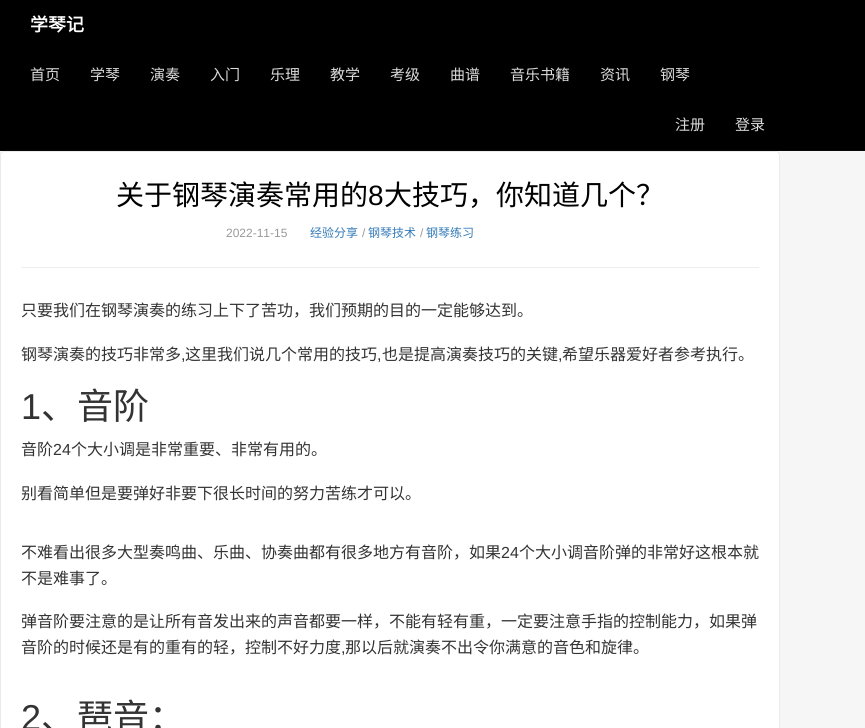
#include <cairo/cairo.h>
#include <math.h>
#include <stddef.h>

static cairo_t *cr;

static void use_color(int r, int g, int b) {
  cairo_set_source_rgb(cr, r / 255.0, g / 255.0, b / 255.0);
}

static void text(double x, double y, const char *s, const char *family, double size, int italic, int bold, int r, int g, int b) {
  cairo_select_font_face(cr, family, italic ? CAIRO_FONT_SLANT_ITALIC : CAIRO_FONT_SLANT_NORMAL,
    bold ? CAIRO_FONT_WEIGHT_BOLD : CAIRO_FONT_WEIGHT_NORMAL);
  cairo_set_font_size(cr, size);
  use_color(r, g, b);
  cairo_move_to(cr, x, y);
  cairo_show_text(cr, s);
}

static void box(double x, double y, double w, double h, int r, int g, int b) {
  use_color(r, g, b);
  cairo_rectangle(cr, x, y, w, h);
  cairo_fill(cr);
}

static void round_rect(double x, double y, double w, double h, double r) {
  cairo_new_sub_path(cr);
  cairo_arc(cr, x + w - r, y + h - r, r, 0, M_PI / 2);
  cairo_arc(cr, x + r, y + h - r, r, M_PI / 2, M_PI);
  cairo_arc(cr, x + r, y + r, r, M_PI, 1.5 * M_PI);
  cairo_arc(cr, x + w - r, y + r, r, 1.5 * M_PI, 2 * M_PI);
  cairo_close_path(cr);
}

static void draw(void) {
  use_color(246, 246, 246);
  cairo_paint(cr);
  box(0, 0, 865, 150, 0, 0, 0);
  box(0, 150, 865, 1, 8, 8, 8);
  use_color(255, 255, 255);
  round_rect(0.5, 151.5, 779, 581, 3.5);
  cairo_fill_preserve(cr);
  use_color(234, 234, 234);
  cairo_set_line_width(cr, 1);
  cairo_stroke(cr);
  box(21, 267, 738, 1, 238, 238, 238);
  text(30, 31, "学琴记", "Noto Sans CJK SC", 18, 0, 1, 255, 255, 255);
  text(30, 80, "首页", "Noto Sans CJK SC", 15, 0, 0, 220, 219, 219);
  text(90, 80, "学琴", "Noto Sans CJK SC", 15, 0, 0, 220, 219, 219);
  text(150, 80, "演奏", "Noto Sans CJK SC", 15, 0, 0, 220, 219, 219);
  text(210, 80, "入门", "Noto Sans CJK SC", 15, 0, 0, 220, 219, 219);
  text(270, 80, "乐理", "Noto Sans CJK SC", 15, 0, 0, 220, 219, 219);
  text(330, 80, "教学", "Noto Sans CJK SC", 15, 0, 0, 220, 219, 219);
  text(390, 80, "考级", "Noto Sans CJK SC", 15, 0, 0, 220, 219, 219);
  text(450, 80, "曲谱", "Noto Sans CJK SC", 15, 0, 0, 220, 219, 219);
  text(510, 80, "音乐书籍", "Noto Sans CJK SC", 15, 0, 0, 220, 219, 219);
  text(600, 80, "资讯", "Noto Sans CJK SC", 15, 0, 0, 220, 219, 219);
  text(660, 80, "钢琴", "Noto Sans CJK SC", 15, 0, 0, 220, 219, 219);
  text(675, 130, "注册", "Noto Sans CJK SC", 15, 0, 0, 220, 219, 219);
  text(735, 130, "登录", "Noto Sans CJK SC", 15, 0, 0, 220, 219, 219);
  text(116, 205, "关于钢琴演奏常用的", "Noto Sans CJK SC", 28, 0, 0, 0, 0, 0);
  text(368, 205, "8", "Liberation Sans", 28, 0, 0, 0, 0, 0);
  text(384, 205, "大技巧，你知道几个？", "Noto Sans CJK SC", 28, 0, 0, 0, 0, 0);
  text(226, 237, "2022-11-15", "Liberation Sans", 12, 0, 0, 153, 153, 153);
  text(310, 237, "经验分享", "Noto Sans CJK SC", 12, 0, 0, 51, 122, 183);
  text(362, 237, "/", "Liberation Sans", 12, 0, 0, 153, 153, 153);
  text(368, 237, "钢琴技术", "Noto Sans CJK SC", 12, 0, 0, 51, 122, 183);
  text(420, 237, "/", "Liberation Sans", 12, 0, 0, 153, 153, 153);
  text(426, 237, "钢琴练习", "Noto Sans CJK SC", 12, 0, 0, 51, 122, 183);
  text(21, 316, "只要我们在钢琴演奏的练习上下了苦功，我们预期的目的一定能够达到。", "Noto Sans CJK SC", 16, 0, 0, 51, 51, 51);
  text(21, 360, "钢琴演奏的技巧非常多", "Noto Sans CJK SC", 16, 0, 0, 51, 51, 51);
  text(181, 360, ",", "Liberation Sans", 16, 0, 0, 51, 51, 51);
  text(185, 360, "这里我们说几个常用的技巧", "Noto Sans CJK SC", 16, 0, 0, 51, 51, 51);
  text(377, 360, ",", "Liberation Sans", 16, 0, 0, 51, 51, 51);
  text(382, 360, "也是提高演奏技巧的关键", "Noto Sans CJK SC", 16, 0, 0, 51, 51, 51);
  text(558, 360, ",", "Liberation Sans", 16, 0, 0, 51, 51, 51);
  text(562, 360, "希望乐器爱好者参考执行。", "Noto Sans CJK SC", 16, 0, 0, 51, 51, 51);
  text(21, 419, "1", "Liberation Sans", 36, 0, 0, 51, 51, 51);
  text(41, 419, "、音阶", "Noto Sans CJK SC", 36, 0, 0, 51, 51, 51);
  text(21, 455, "音阶", "Noto Sans CJK SC", 16, 0, 0, 51, 51, 51);
  text(53, 455, "24", "Liberation Sans", 16, 0, 0, 51, 51, 51);
  text(71, 455, "个大小调是非常重要、非常有用的。", "Noto Sans CJK SC", 16, 0, 0, 51, 51, 51);
  text(21, 499, "别看简单但是要弹好非要下很长时间的努力苦练才可以。", "Noto Sans CJK SC", 16, 0, 0, 51, 51, 51);
  text(21, 558, "不难看出很多大型奏鸣曲、乐曲、协奏曲都有很多地方有音阶，如果", "Noto Sans CJK SC", 16, 0, 0, 51, 51, 51);
  text(501, 558, "24", "Liberation Sans", 16, 0, 0, 51, 51, 51);
  text(519, 558, "个大小调音阶弹的非常好这根本就", "Noto Sans CJK SC", 16, 0, 0, 51, 51, 51);
  text(21, 584, "不是难事了。", "Noto Sans CJK SC", 16, 0, 0, 51, 51, 51);
  text(21, 627, "弹音阶要注意的是让所有音发出来的声音都要一样，不能有轻有重，一定要注意手指的控制能力，如果弹", "Noto Sans CJK SC", 16, 0, 0, 51, 51, 51);
  text(21, 653, "音阶的时候还是有的重有的轻，控制不好力度", "Noto Sans CJK SC", 16, 0, 0, 51, 51, 51);
  text(341, 653, ",", "Liberation Sans", 16, 0, 0, 51, 51, 51);
  text(345, 653, "那以后就演奏不出令你满意的音色和旋律。", "Noto Sans CJK SC", 16, 0, 0, 51, 51, 51);
  text(21, 730, "2", "Liberation Sans", 36, 0, 0, 51, 51, 51);
  text(41, 730, "、琶音：", "Noto Sans CJK SC", 36, 0, 0, 51, 51, 51);
}

int main(void) {
  cairo_surface_t *surface = cairo_image_surface_create(CAIRO_FORMAT_RGB24, 865, 728);
  cr = cairo_create(surface);
  cairo_font_options_t *options = cairo_font_options_create();
  cairo_font_options_set_hint_metrics(options, CAIRO_HINT_METRICS_OFF);
  cairo_font_options_set_hint_style(options, CAIRO_HINT_STYLE_NONE);
  cairo_set_font_options(cr, options);
  cairo_set_miter_limit(cr, 4);
  draw();
  cairo_surface_write_to_png(surface, "out.png");
  cairo_font_options_destroy(options);
  cairo_destroy(cr);
  cairo_surface_destroy(surface);
  return 0;
}
